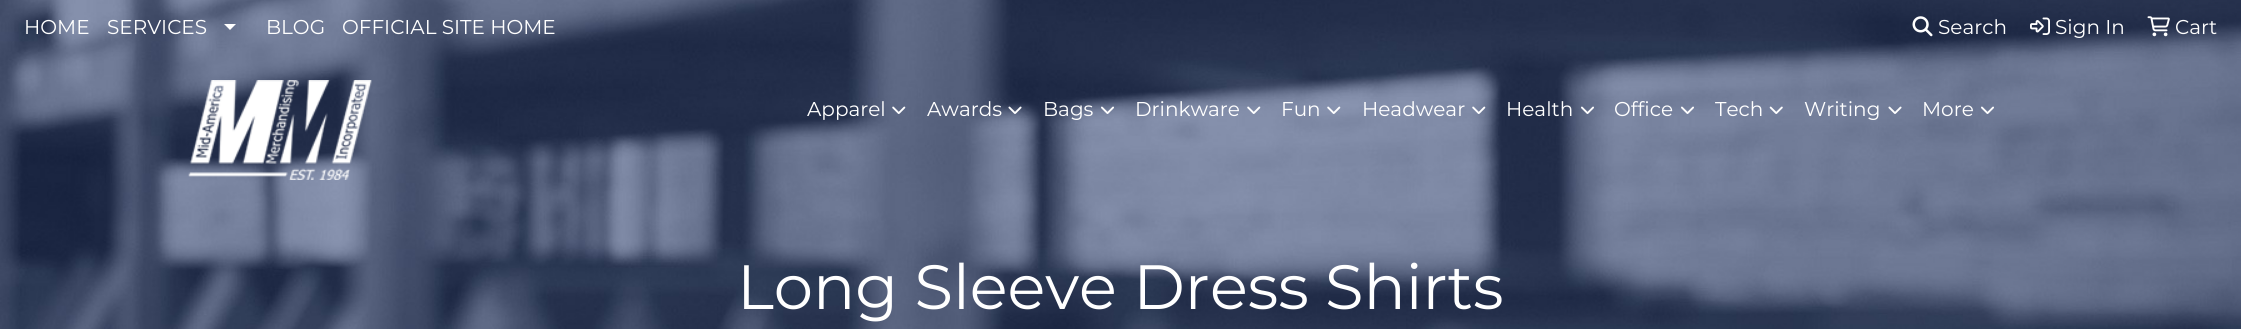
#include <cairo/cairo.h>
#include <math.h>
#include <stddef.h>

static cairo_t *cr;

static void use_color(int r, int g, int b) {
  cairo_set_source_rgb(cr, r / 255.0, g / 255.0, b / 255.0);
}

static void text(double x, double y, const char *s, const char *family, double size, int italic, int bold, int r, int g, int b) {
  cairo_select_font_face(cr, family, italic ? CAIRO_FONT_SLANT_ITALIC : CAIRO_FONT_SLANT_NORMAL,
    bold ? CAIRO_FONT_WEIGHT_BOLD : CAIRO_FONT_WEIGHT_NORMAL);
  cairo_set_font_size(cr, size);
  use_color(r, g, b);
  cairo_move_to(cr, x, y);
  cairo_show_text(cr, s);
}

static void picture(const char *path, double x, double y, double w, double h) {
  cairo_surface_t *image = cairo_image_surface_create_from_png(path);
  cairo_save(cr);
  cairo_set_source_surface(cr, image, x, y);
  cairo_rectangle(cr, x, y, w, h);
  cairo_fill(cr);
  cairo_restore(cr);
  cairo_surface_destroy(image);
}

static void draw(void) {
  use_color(255, 255, 255);
  cairo_paint(cr);
  picture("img_16.png", 0, 0, 2241, 329);
  use_color(255, 255, 255);
  cairo_new_path(cr);
  cairo_move_to(cr, 224, 24);
  cairo_line_to(cr, 236, 24);
  cairo_line_to(cr, 230, 30);
  cairo_close_path(cr);
  cairo_fill(cr);
  picture("img_01.png", 1912, 16, 21, 21);
  picture("img_02.png", 2030, 17, 20, 18);
  picture("img_03.png", 2147, 16, 23, 21);
  picture("img_04.png", 188, 80, 184, 100);
  picture("img_05.png", 892, 106, 14, 8);
  picture("img_06.png", 1008, 106, 14, 8);
  picture("img_07.png", 1101, 106, 13, 8);
  picture("img_08.png", 1247, 106, 14, 8);
  picture("img_09.png", 1327, 106, 14, 8);
  picture("img_10.png", 1472, 106, 14, 8);
  picture("img_11.png", 1581, 106, 13, 8);
  picture("img_12.png", 1681, 106, 13, 8);
  picture("img_13.png", 1769, 106, 14, 8);
  picture("img_14.png", 1888, 106, 14, 8);
  picture("img_15.png", 1981, 106, 13, 8);
  text(24, 34, "HOME", "Montserrat Thin", 20, 0, 0, 255, 255, 255);
  text(107, 34, "SERVICES", "Montserrat Thin", 20, 0, 0, 255, 255, 255);
  text(266, 34, "BLOG", "Montserrat Thin", 20, 0, 0, 255, 255, 255);
  text(342, 34, "OFFICIAL SITE HOME", "Montserrat Thin", 20, 0, 0, 255, 255, 255);
  text(1938, 34, "Search", "Montserrat Thin", 20, 0, 0, 255, 255, 255);
  text(2055, 34, "Sign In", "Montserrat Thin", 20, 0, 0, 255, 255, 255);
  text(2175, 34, "Cart", "Montserrat Thin", 20, 0, 0, 255, 255, 255);
  text(807, 116, "Apparel", "Montserrat Thin", 20, 0, 0, 255, 255, 255);
  text(927, 116, "Awards", "Montserrat Thin", 20, 0, 0, 255, 255, 255);
  text(1043, 116, "Bags", "Montserrat Thin", 20, 0, 0, 255, 255, 255);
  text(1135, 116, "Drinkware", "Montserrat Thin", 20, 0, 0, 255, 255, 255);
  text(1281, 116, "Fun", "Montserrat Thin", 20, 0, 0, 255, 255, 255);
  text(1362, 116, "Headwear", "Montserrat Thin", 20, 0, 0, 255, 255, 255);
  text(1506, 116, "Health", "Montserrat Thin", 20, 0, 0, 255, 255, 255);
  text(1614, 116, "Office", "Montserrat Thin", 20, 0, 0, 255, 255, 255);
  text(1715, 116, "Tech", "Montserrat Thin", 20, 0, 0, 255, 255, 255);
  text(1804, 116, "Writing", "Montserrat Thin", 20, 0, 0, 255, 255, 255);
  text(1922, 116, "More", "Montserrat Thin", 20, 0, 0, 255, 255, 255);
  text(737, 309, "Long Sleeve Dress Shirts", "Montserrat Thin", 62.5, 0, 0, 255, 255, 255);
}

int main(void) {
  cairo_surface_t *surface = cairo_image_surface_create(CAIRO_FORMAT_RGB24, 2241, 329);
  cr = cairo_create(surface);
  cairo_font_options_t *options = cairo_font_options_create();
  cairo_font_options_set_hint_metrics(options, CAIRO_HINT_METRICS_OFF);
  cairo_font_options_set_hint_style(options, CAIRO_HINT_STYLE_NONE);
  cairo_set_font_options(cr, options);
  cairo_set_miter_limit(cr, 4);
  draw();
  cairo_surface_write_to_png(surface, "out.png");
  cairo_font_options_destroy(options);
  cairo_destroy(cr);
  cairo_surface_destroy(surface);
  return 0;
}
